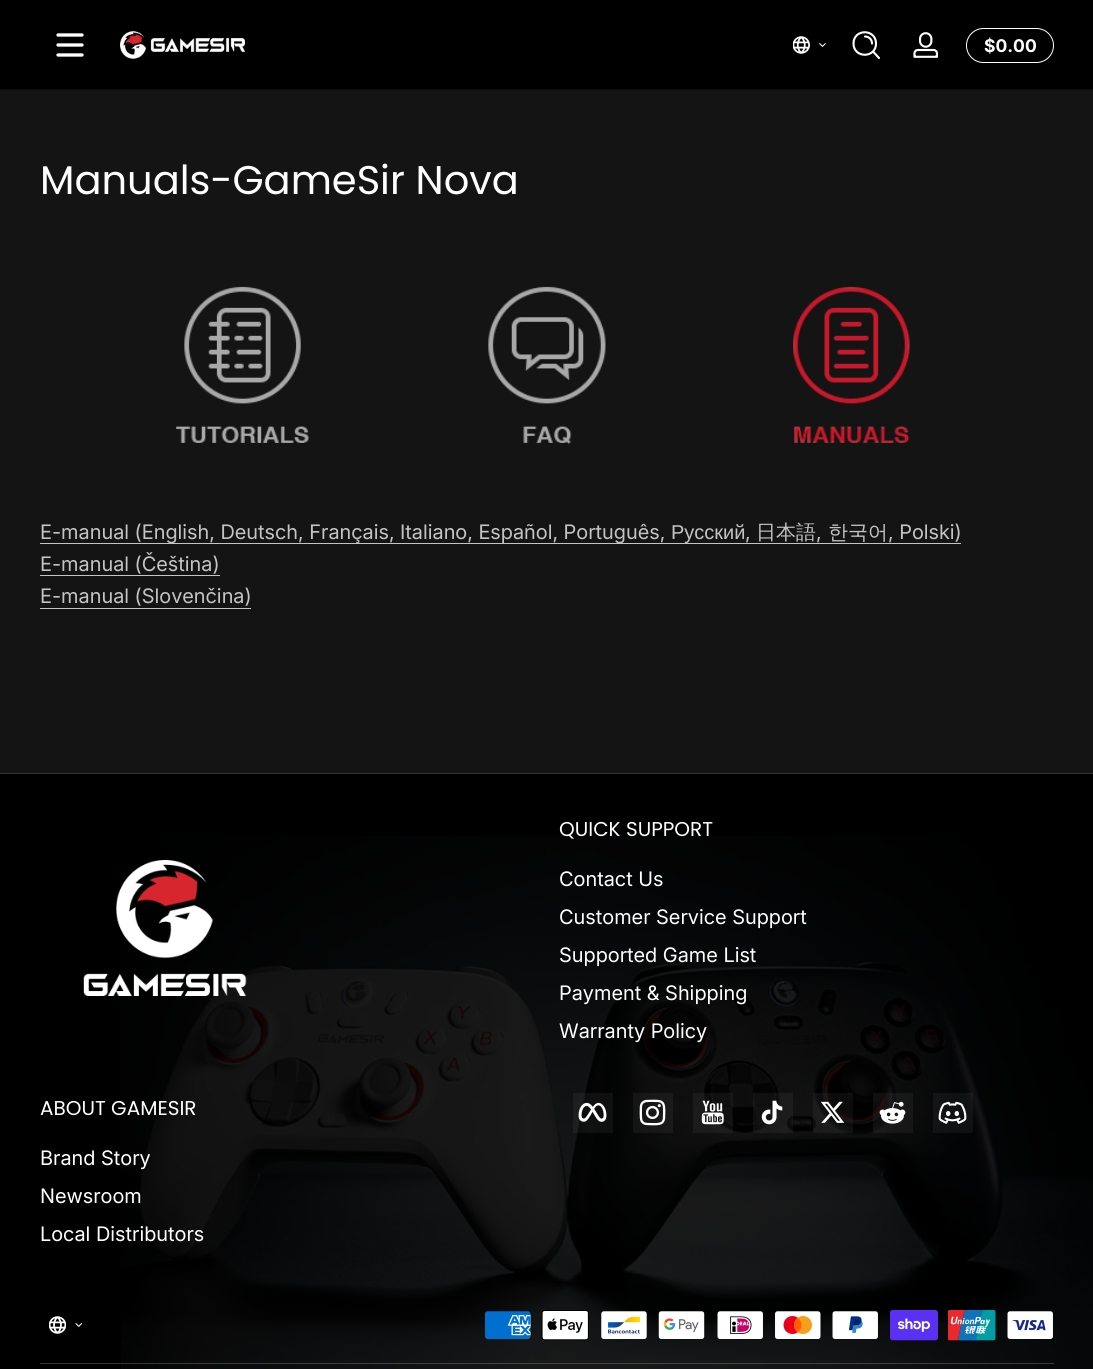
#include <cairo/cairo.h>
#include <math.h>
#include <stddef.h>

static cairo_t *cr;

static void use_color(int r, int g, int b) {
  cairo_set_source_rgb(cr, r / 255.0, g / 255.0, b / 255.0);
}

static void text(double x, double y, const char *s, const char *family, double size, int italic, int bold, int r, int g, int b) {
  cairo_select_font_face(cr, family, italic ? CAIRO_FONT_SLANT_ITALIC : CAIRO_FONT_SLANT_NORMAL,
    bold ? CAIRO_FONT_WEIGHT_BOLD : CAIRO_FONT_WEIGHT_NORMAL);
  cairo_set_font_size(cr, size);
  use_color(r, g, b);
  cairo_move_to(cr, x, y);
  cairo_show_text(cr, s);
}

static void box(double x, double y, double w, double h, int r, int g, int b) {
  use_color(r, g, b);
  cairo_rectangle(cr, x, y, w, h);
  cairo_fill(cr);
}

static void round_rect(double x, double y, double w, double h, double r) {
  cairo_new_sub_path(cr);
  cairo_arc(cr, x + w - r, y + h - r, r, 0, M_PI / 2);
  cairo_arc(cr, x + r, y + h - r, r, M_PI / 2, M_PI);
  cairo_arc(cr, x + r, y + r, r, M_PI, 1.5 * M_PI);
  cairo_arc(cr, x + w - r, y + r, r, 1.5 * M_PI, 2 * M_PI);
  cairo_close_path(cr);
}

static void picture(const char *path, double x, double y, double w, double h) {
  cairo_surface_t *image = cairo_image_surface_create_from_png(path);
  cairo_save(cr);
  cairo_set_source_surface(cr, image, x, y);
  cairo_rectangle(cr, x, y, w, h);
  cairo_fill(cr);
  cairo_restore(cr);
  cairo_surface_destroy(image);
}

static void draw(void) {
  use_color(20, 20, 20);
  cairo_paint(cr);
  box(0, 0, 1093, 89, 0, 0, 0);
  cairo_new_path(cr);
  cairo_move_to(cr, 58, 35);
  cairo_line_to(cr, 82, 35);
  cairo_move_to(cr, 58, 45);
  cairo_line_to(cr, 82, 45);
  cairo_move_to(cr, 58, 55);
  cairo_line_to(cr, 82, 55);
  use_color(255, 255, 255);
  cairo_set_line_width(cr, 3.3);
  cairo_set_line_cap(cr, CAIRO_LINE_CAP_ROUND);
  cairo_stroke(cr);
  picture("img_01.png", 120, 31, 125, 28);
  picture("img_02.png", 793, 36, 17, 18);
  picture("img_03.png", 819, 43, 7, 4);
  cairo_new_path(cr);
  cairo_move_to(cr, 865, 36.5);
  cairo_curve_to(cr, 869, 36.5, 872, 39.5, 872, 43.5);
  cairo_move_to(cr, 873, 51.5);
  cairo_line_to(cr, 879, 58);
  cairo_move_to(cr, 876, 43.5);
  cairo_curve_to(cr, 876, 58.5, 853.5, 58.5, 853.5, 43.5);
  cairo_curve_to(cr, 853.5, 28.5, 876, 28.5, 876, 43.5);
  cairo_close_path(cr);
  cairo_set_line_width(cr, 2.1);
  cairo_set_line_join(cr, CAIRO_LINE_JOIN_ROUND);
  cairo_stroke(cr);
  picture("img_04.png", 913, 32, 26, 26);
  round_rect(966.5, 28.5, 87, 34, 17);
  cairo_set_line_width(cr, 1);
  cairo_set_line_cap(cr, CAIRO_LINE_CAP_BUTT);
  cairo_set_line_join(cr, CAIRO_LINE_JOIN_MITER);
  cairo_stroke(cr);
  box(0, 89, 1093, 1, 13, 13, 13);
  picture("img_05.png", 176, 286, 133, 157);
  picture("img_06.png", 488, 286, 118, 159);
  picture("img_07.png", 793, 286, 117, 157);
  box(40, 543, 921, 1, 196, 196, 196);
  box(40, 575, 180, 1, 196, 196, 196);
  box(40, 608, 211, 1, 196, 196, 196);
  box(0, 774, 1093, 595, 0, 0, 0);
  box(0, 773, 1093, 1, 51, 51, 51);
  picture("img_28.png", 121, 836, 972, 533);
  picture("img_08.png", 83, 860, 164, 136);
  cairo_set_source_rgba(cr, 1, 1, 1, 0.05);
  cairo_rectangle(cr, 573, 1093, 40, 40);
  cairo_fill(cr);
  picture("img_09.png", 578, 1102, 29, 20);
  cairo_rectangle(cr, 633, 1093, 40, 40);
  cairo_fill(cr);
  picture("img_10.png", 639, 1099, 27, 27);
  cairo_rectangle(cr, 693, 1093, 40, 40);
  cairo_fill(cr);
  picture("img_11.png", 701, 1100, 23, 25);
  cairo_rectangle(cr, 753, 1093, 40, 40);
  cairo_fill(cr);
  picture("img_12.png", 761, 1100, 22, 25);
  cairo_rectangle(cr, 813, 1093, 40, 40);
  cairo_fill(cr);
  picture("img_13.png", 820, 1101, 25, 22);
  cairo_rectangle(cr, 873, 1093, 40, 40);
  cairo_fill(cr);
  picture("img_14.png", 879, 1101, 27, 23);
  cairo_rectangle(cr, 933, 1093, 40, 40);
  cairo_fill(cr);
  picture("img_15.png", 938, 1101, 29, 23);
  picture("img_16.png", 49, 1316, 17, 18);
  picture("img_17.png", 75, 1323, 7, 4);
  picture("img_18.png", 485, 1311, 46, 28);
  picture("img_19.png", 541, 1310, 48, 31);
  picture("img_20.png", 601, 1311, 46, 28);
  picture("img_21.png", 658, 1311, 47, 28);
  picture("img_22.png", 717, 1311, 46, 28);
  picture("img_23.png", 775, 1311, 46, 28);
  picture("img_24.png", 832, 1311, 46, 28);
  picture("img_25.png", 890, 1310, 48, 31);
  picture("img_26.png", 948, 1310, 48, 31);
  picture("img_27.png", 1007, 1311, 46, 28);
  cairo_set_source_rgba(cr, 1, 1, 1, 0.2);
  cairo_rectangle(cr, 40, 1363, 1014, 1);
  cairo_fill(cr);
  text(984, 52, "$0.00", "Inter", 17.5, 0, 1, 255, 255, 255);
  text(40, 194, "Manuals-GameSir Nova", "Poppins", 40, 0, 0, 255, 255, 255);
  text(40, 539, "E-manual (English, Deutsch, Français, Italiano, Español, Português,", "Inter", 20, 0, 0, 196, 196, 196);
  text(671, 539, "Русский", "Liberation Sans", 20, 0, 0, 196, 196, 196);
  text(745, 539, ",", "Inter", 20, 0, 0, 196, 196, 196);
  text(756, 539, "日本語", "WenQuanYi Zen Hei Medium", 20, 0, 0, 196, 196, 196);
  text(816, 539, ",", "Inter", 20, 0, 0, 196, 196, 196);
  text(828, 539, "한국어", "WenQuanYi Zen Hei Medium", 20, 0, 0, 196, 196, 196);
  text(888, 539, ", Polski)", "Inter", 20, 0, 0, 196, 196, 196);
  text(40, 571, "E-manual (Čeština)", "Inter", 20, 0, 0, 196, 196, 196);
  text(40, 603, "E-manual (Slovenčina)", "Inter", 20, 0, 0, 196, 196, 196);
  text(559, 836, "QUICK SUPPORT", "Poppins", 20, 0, 0, 255, 255, 255);
  text(559, 886, "Contact Us", "Inter", 20, 0, 0, 255, 255, 255);
  text(559, 924, "Customer Service Support", "Inter", 20, 0, 0, 255, 255, 255);
  text(559, 962, "Supported Game List", "Inter", 20, 0, 0, 255, 255, 255);
  text(559, 1000, "Payment & Shipping", "Inter", 20, 0, 0, 255, 255, 255);
  text(559, 1038, "Warranty Policy", "Inter", 20, 0, 0, 255, 255, 255);
  text(40, 1115, "ABOUT GAMESIR", "Poppins", 20, 0, 0, 255, 255, 255);
  text(40, 1165, "Brand Story", "Inter", 20, 0, 0, 255, 255, 255);
  text(40, 1203, "Newsroom", "Inter", 20, 0, 0, 255, 255, 255);
  text(40, 1241, "Local Distributors", "Inter", 20, 0, 0, 255, 255, 255);
}

int main(void) {
  cairo_surface_t *surface = cairo_image_surface_create(CAIRO_FORMAT_RGB24, 1093, 1369);
  cr = cairo_create(surface);
  cairo_font_options_t *options = cairo_font_options_create();
  cairo_font_options_set_hint_metrics(options, CAIRO_HINT_METRICS_OFF);
  cairo_font_options_set_hint_style(options, CAIRO_HINT_STYLE_NONE);
  cairo_set_font_options(cr, options);
  cairo_set_miter_limit(cr, 4);
  draw();
  cairo_surface_write_to_png(surface, "out.png");
  cairo_font_options_destroy(options);
  cairo_destroy(cr);
  cairo_surface_destroy(surface);
  return 0;
}
